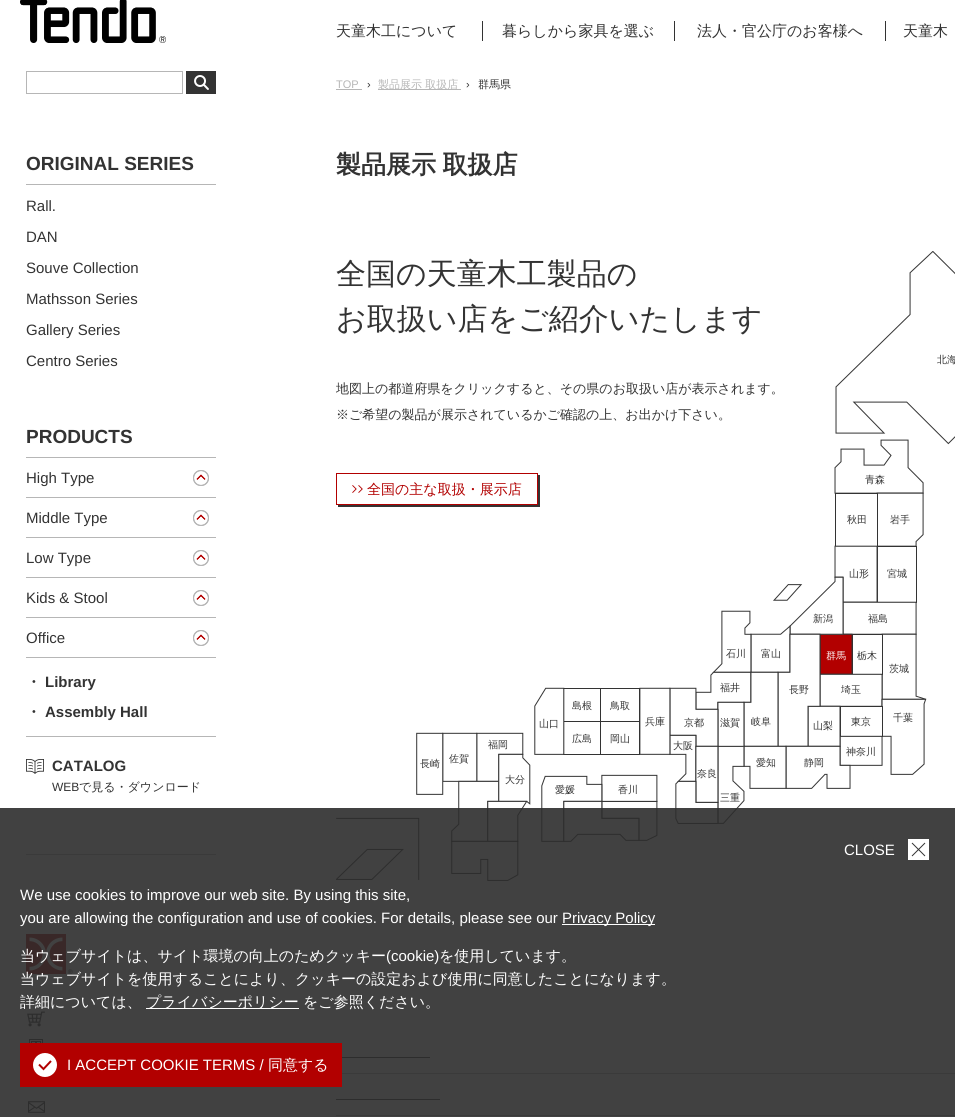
#include <cairo/cairo.h>
#include <math.h>
#include <stddef.h>

static cairo_t *cr;

static void use_color(int r, int g, int b) {
  cairo_set_source_rgb(cr, r / 255.0, g / 255.0, b / 255.0);
}

static void text(double x, double y, const char *s, const char *family, double size, int italic, int bold, int r, int g, int b) {
  cairo_select_font_face(cr, family, italic ? CAIRO_FONT_SLANT_ITALIC : CAIRO_FONT_SLANT_NORMAL,
    bold ? CAIRO_FONT_WEIGHT_BOLD : CAIRO_FONT_WEIGHT_NORMAL);
  cairo_set_font_size(cr, size);
  use_color(r, g, b);
  cairo_move_to(cr, x, y);
  cairo_show_text(cr, s);
}

static void spaced_text(double x, double y, const char *s, double letter, double word) {
  cairo_move_to(cr, x, y);
  while (*s) {
    char ch[5] = {0};
    int n = 0;
    do ch[n++] = *s++; while ((*s & 0xC0) == 0x80);
    cairo_show_text(cr, ch);
    cairo_rel_move_to(cr, letter + word * (*ch == ' '), 0);
  }
}

static void box(double x, double y, double w, double h, int r, int g, int b) {
  use_color(r, g, b);
  cairo_rectangle(cr, x, y, w, h);
  cairo_fill(cr);
}

static void picture(const char *path, double x, double y, double w, double h) {
  cairo_surface_t *image = cairo_image_surface_create_from_png(path);
  cairo_save(cr);
  cairo_set_source_surface(cr, image, x, y);
  cairo_rectangle(cr, x, y, w, h);
  cairo_fill(cr);
  cairo_restore(cr);
  cairo_surface_destroy(image);
}

static void draw(void) {
  use_color(255, 255, 255);
  cairo_paint(cr);
  picture("img_01.png", 20, 0, 146, 43);
  box(482, 21, 1, 20, 51, 51, 51);
  box(674, 21, 1, 20, 51, 51, 51);
  box(885, 21, 1, 20, 51, 51, 51);
  cairo_rectangle(cr, 26.5, 71.5, 156, 22);
  use_color(182, 182, 182);
  cairo_set_line_width(cr, 1);
  cairo_stroke(cr);
  box(186, 71, 30, 23, 51, 51, 51);
  picture("img_02.png", 194, 75, 15, 15);
  box(26, 184, 190, 1, 182, 182, 182);
  box(26, 457, 190, 1, 182, 182, 182);
  box(26, 497, 190, 1, 182, 182, 182);
  picture("img_03.png", 193, 470, 16, 16);
  box(26, 537, 190, 1, 182, 182, 182);
  picture("img_03.png", 193, 510, 16, 16);
  box(26, 577, 190, 1, 182, 182, 182);
  picture("img_03.png", 193, 550, 16, 16);
  box(26, 617, 190, 1, 182, 182, 182);
  picture("img_03.png", 193, 590, 16, 16);
  box(26, 657, 190, 1, 182, 182, 182);
  picture("img_03.png", 193, 630, 16, 16);
  box(26, 736, 190, 1, 182, 182, 182);
  picture("img_04.png", 26, 759, 18, 15);
  box(26, 854, 190, 1, 182, 182, 182);
  picture("img_05.png", 26, 934, 47, 40);
  picture("img_06.png", 27, 1011, 18, 16);
  picture("img_07.png", 29, 1039, 14, 4);
  picture("img_08.png", 28, 1101, 17, 12);
  box(336, 89, 26, 1, 182, 182, 182);
  box(378, 89, 83, 1, 182, 182, 182);
  picture("img_10.png", 336, 251, 619, 630);
  use_color(51, 51, 51);
  cairo_new_path(cr);
  cairo_move_to(cr, 338, 505);
  cairo_line_to(cr, 338, 507);
  cairo_line_to(cr, 540, 507);
  cairo_line_to(cr, 540, 475);
  cairo_line_to(cr, 538, 475);
  cairo_line_to(cr, 538, 505);
  cairo_close_path(cr);
  cairo_fill(cr);
  cairo_rectangle(cr, 336.5, 473.5, 201, 31);
  use_color(178, 0, 0);
  cairo_stroke(cr);
  picture("img_09.png", 352, 485, 11, 8);
  box(336, 1073, 619, 1, 182, 182, 182);
  box(336, 1057, 94, 1, 51, 51, 51);
  box(336, 1115, 619, 1, 182, 182, 182);
  box(336, 1099, 104, 1, 51, 51, 51);
  cairo_set_source_rgba(cr, 0.176, 0.176, 0.176, 0.9);
  cairo_rectangle(cr, 0, 808, 955, 309);
  cairo_fill(cr);
  box(908, 839, 21, 21, 255, 255, 255);
  cairo_new_path(cr);
  cairo_move_to(cr, 925, 843);
  cairo_line_to(cr, 912, 856);
  cairo_move_to(cr, 912, 843);
  cairo_line_to(cr, 925, 856);
  use_color(51, 51, 51);
  cairo_stroke(cr);
  box(562, 924, 93, 1, 255, 255, 255);
  box(146, 1008, 153, 1, 255, 255, 255);
  box(20, 1043, 322, 44, 178, 0, 0);
  use_color(255, 255, 255);
  cairo_arc(cr, 45, 1065, 12, 0, 2 * M_PI);
  cairo_fill(cr);
  cairo_new_path(cr);
  cairo_move_to(cr, 39, 1064.5);
  cairo_line_to(cr, 43.5, 1069);
  cairo_line_to(cr, 51, 1061);
  use_color(177, 0, 0);
  cairo_set_line_width(cr, 2);
  cairo_stroke(cr);
  text(336, 36, "天童木工について", "WenQuanYi Zen Hei Medium", 15, 0, 0, 51, 51, 51);
  text(502, 36, "暮らしから家具を選ぶ", "WenQuanYi Zen Hei Medium", 15, 0, 0, 51, 51, 51);
  text(697, 36, "法人・官公庁のお客様へ", "WenQuanYi Zen Hei Medium", 15, 0, 0, 51, 51, 51);
  text(903, 36, "天童木", "WenQuanYi Zen Hei Medium", 15, 0, 0, 51, 51, 51);
  text(26, 170, "ORIGINAL SERIES", "Liberation Sans", 19, 0, 1, 51, 51, 51);
  text(26, 211, "Rall.", "Liberation Sans", 15, 0, 0, 51, 51, 51);
  text(26, 242, "DAN", "Liberation Sans", 15, 0, 0, 51, 51, 51);
  text(26, 273, "Souve Collection", "Liberation Sans", 15, 0, 0, 51, 51, 51);
  text(26, 304, "Mathsson Series", "Liberation Sans", 15, 0, 0, 51, 51, 51);
  text(26, 335, "Gallery Series", "Liberation Sans", 15, 0, 0, 51, 51, 51);
  text(26, 366, "Centro Series", "Liberation Sans", 15, 0, 0, 51, 51, 51);
  text(26, 443, "PRODUCTS", "Liberation Sans", 19, 0, 1, 51, 51, 51);
  text(26, 483, "High Type", "Liberation Sans", 15, 0, 0, 51, 51, 51);
  text(26, 523, "Middle Type", "Liberation Sans", 15, 0, 0, 51, 51, 51);
  text(26, 563, "Low Type", "Liberation Sans", 15, 0, 0, 51, 51, 51);
  text(26, 603, "Kids & Stool", "Liberation Sans", 15, 0, 0, 51, 51, 51);
  text(26, 643, "Office", "Liberation Sans", 15, 0, 0, 51, 51, 51);
  text(26, 687, "・", "WenQuanYi Zen Hei", 15, 0, 1, 51, 51, 51);
  text(45, 687, "Library", "Liberation Sans", 15, 0, 1, 51, 51, 51);
  text(26, 717, "・", "WenQuanYi Zen Hei", 15, 0, 1, 51, 51, 51);
  text(45, 717, "Assembly Hall", "Liberation Sans", 15, 0, 1, 51, 51, 51);
  text(52, 771, "CATALOG", "Liberation Sans", 15, 0, 1, 51, 51, 51);
  text(52, 791, "WEB", "Liberation Sans", 12, 0, 0, 51, 51, 51);
  text(79, 791, "で見る・ダウンロード", "WenQuanYi Zen Hei Medium", 12, 0, 0, 51, 51, 51);
  text(336, 88, "TOP", "Liberation Sans", 11, 0, 0, 182, 182, 182);
  text(367, 88, "›", "Liberation Sans", 11, 0, 0, 51, 51, 51);
  text(378, 88, "製品展示 取扱店", "WenQuanYi Zen Hei Medium", 11, 0, 0, 182, 182, 182);
  text(466, 88, "›", "Liberation Sans", 11, 0, 0, 51, 51, 51);
  text(478, 88, "群馬県", "WenQuanYi Zen Hei Medium", 11, 0, 0, 51, 51, 51);
  cairo_select_font_face(cr, "WenQuanYi Zen Hei", CAIRO_FONT_SLANT_NORMAL, CAIRO_FONT_WEIGHT_BOLD);
  cairo_set_font_size(cr, 25);
  spaced_text(336, 173, "製品展示 取扱店", 0, -1);
  text(336, 284, "全国の天童木工製品の", "WenQuanYi Zen Hei Medium", 30, 0, 0, 51, 51, 51);
  text(336, 329, "お取扱い店をご紹介いたします", "WenQuanYi Zen Hei Medium", 30, 0, 0, 51, 51, 51);
  text(336, 393, "地図上の都道府県をクリックすると、その県のお取扱い店が表示されます。", "WenQuanYi Zen Hei Medium", 13, 0, 0, 51, 51, 51);
  text(336, 419, "※ご希望の製品が展示されているかご確認の上、お出かけ下さい。", "WenQuanYi Zen Hei Medium", 13, 0, 0, 51, 51, 51);
  text(367, 494, "全国の主な取扱・展示店", "WenQuanYi Zen Hei Medium", 14, 0, 0, 178, 0, 0);
  text(937, 363, "北海", "WenQuanYi Zen Hei Medium", 10, 0, 0, 51, 51, 51);
  text(865, 483, "青森", "WenQuanYi Zen Hei Medium", 10, 0, 0, 51, 51, 51);
  text(847, 523, "秋田", "WenQuanYi Zen Hei Medium", 10, 0, 0, 51, 51, 51);
  text(890, 523, "岩手", "WenQuanYi Zen Hei Medium", 10, 0, 0, 51, 51, 51);
  text(849, 577, "山形", "WenQuanYi Zen Hei Medium", 10, 0, 0, 51, 51, 51);
  text(887, 577, "宮城", "WenQuanYi Zen Hei Medium", 10, 0, 0, 51, 51, 51);
  text(813, 622, "新潟", "WenQuanYi Zen Hei Medium", 10, 0, 0, 51, 51, 51);
  text(868, 622, "福島", "WenQuanYi Zen Hei Medium", 10, 0, 0, 51, 51, 51);
  text(726, 657, "石川", "WenQuanYi Zen Hei Medium", 10, 0, 0, 51, 51, 51);
  text(761, 657, "富山", "WenQuanYi Zen Hei Medium", 10, 0, 0, 51, 51, 51);
  text(826, 659, "群馬", "WenQuanYi Zen Hei Medium", 10, 0, 0, 255, 255, 255);
  text(857, 659, "栃木", "WenQuanYi Zen Hei Medium", 10, 0, 0, 51, 51, 51);
  text(889, 672, "茨城", "WenQuanYi Zen Hei Medium", 10, 0, 0, 51, 51, 51);
  text(720, 691, "福井", "WenQuanYi Zen Hei Medium", 10, 0, 0, 51, 51, 51);
  text(789, 693, "長野", "WenQuanYi Zen Hei Medium", 10, 0, 0, 51, 51, 51);
  text(841, 693, "埼玉", "WenQuanYi Zen Hei Medium", 10, 0, 0, 51, 51, 51);
  text(572, 709, "島根", "WenQuanYi Zen Hei Medium", 10, 0, 0, 51, 51, 51);
  text(610, 709, "鳥取", "WenQuanYi Zen Hei Medium", 10, 0, 0, 51, 51, 51);
  text(539, 727, "山口", "WenQuanYi Zen Hei Medium", 10, 0, 0, 51, 51, 51);
  text(645, 725, "兵庫", "WenQuanYi Zen Hei Medium", 10, 0, 0, 51, 51, 51);
  text(684, 726, "京都", "WenQuanYi Zen Hei Medium", 10, 0, 0, 51, 51, 51);
  text(720, 726, "滋賀", "WenQuanYi Zen Hei Medium", 10, 0, 0, 51, 51, 51);
  text(751, 725, "岐阜", "WenQuanYi Zen Hei Medium", 10, 0, 0, 51, 51, 51);
  text(813, 729, "山梨", "WenQuanYi Zen Hei Medium", 10, 0, 0, 51, 51, 51);
  text(851, 725, "東京", "WenQuanYi Zen Hei Medium", 10, 0, 0, 51, 51, 51);
  text(893, 721, "千葉", "WenQuanYi Zen Hei Medium", 10, 0, 0, 51, 51, 51);
  text(488, 748, "福岡", "WenQuanYi Zen Hei Medium", 10, 0, 0, 51, 51, 51);
  text(572, 742, "広島", "WenQuanYi Zen Hei Medium", 10, 0, 0, 51, 51, 51);
  text(610, 742, "岡山", "WenQuanYi Zen Hei Medium", 10, 0, 0, 51, 51, 51);
  text(673, 749, "大阪", "WenQuanYi Zen Hei Medium", 10, 0, 0, 51, 51, 51);
  text(846, 755, "神奈川", "WenQuanYi Zen Hei Medium", 10, 0, 0, 51, 51, 51);
  text(420, 767, "長崎", "WenQuanYi Zen Hei Medium", 10, 0, 0, 51, 51, 51);
  text(449, 762, "佐賀", "WenQuanYi Zen Hei Medium", 10, 0, 0, 51, 51, 51);
  text(756, 766, "愛知", "WenQuanYi Zen Hei Medium", 10, 0, 0, 51, 51, 51);
  text(804, 766, "静岡", "WenQuanYi Zen Hei Medium", 10, 0, 0, 51, 51, 51);
  text(505, 783, "大分", "WenQuanYi Zen Hei Medium", 10, 0, 0, 51, 51, 51);
  text(697, 777, "奈良", "WenQuanYi Zen Hei Medium", 10, 0, 0, 51, 51, 51);
  text(555, 793, "愛媛", "WenQuanYi Zen Hei Medium", 10, 0, 0, 51, 51, 51);
  text(618, 793, "香川", "WenQuanYi Zen Hei Medium", 10, 0, 0, 51, 51, 51);
  text(720, 801, "三重", "WenQuanYi Zen Hei Medium", 10, 0, 0, 51, 51, 51);
  text(844, 855, "CLOSE", "Liberation Sans", 15, 0, 0, 255, 255, 255);
  text(20, 900, "We use cookies to improve our web site. By using this site,", "Liberation Sans", 15, 0, 0, 255, 255, 255);
  text(20, 923, "you are allowing the configuration and use of cookies. For details, please see our", "Liberation Sans", 15, 0, 0, 255, 255, 255);
  text(562, 923, "Privacy Policy", "Liberation Sans", 15, 0, 0, 255, 255, 255);
  text(20, 961, "当ウェブサイトは、サイト環境の向上のためクッキー", "WenQuanYi Zen Hei Medium", 15, 0, 0, 255, 255, 255);
  text(386, 961, "(cookie)", "Liberation Sans", 15, 0, 0, 255, 255, 255);
  text(439, 961, "を使用しています。", "WenQuanYi Zen Hei Medium", 15, 0, 0, 255, 255, 255);
  text(20, 984, "当ウェブサイトを使用することにより、クッキーの設定および使用に同意したことになります。", "WenQuanYi Zen Hei Medium", 15, 0, 0, 255, 255, 255);
  text(20, 1007, "詳細については、", "WenQuanYi Zen Hei Medium", 15, 0, 0, 255, 255, 255);
  text(146, 1007, "プライバシーポリシー", "WenQuanYi Zen Hei Medium", 15, 0, 0, 255, 255, 255);
  text(303, 1007, "をご参照ください。", "WenQuanYi Zen Hei Medium", 15, 0, 0, 255, 255, 255);
  text(67, 1070, "I ACCEPT COOKIE TERMS /", "Liberation Sans", 15, 0, 0, 255, 255, 255);
  text(268, 1070, "同意する", "WenQuanYi Zen Hei Medium", 15, 0, 0, 255, 255, 255);
}

int main(void) {
  cairo_surface_t *surface = cairo_image_surface_create(CAIRO_FORMAT_RGB24, 955, 1117);
  cr = cairo_create(surface);
  cairo_font_options_t *options = cairo_font_options_create();
  cairo_font_options_set_hint_metrics(options, CAIRO_HINT_METRICS_OFF);
  cairo_font_options_set_hint_style(options, CAIRO_HINT_STYLE_NONE);
  cairo_set_font_options(cr, options);
  cairo_set_miter_limit(cr, 4);
  draw();
  cairo_surface_write_to_png(surface, "out.png");
  cairo_font_options_destroy(options);
  cairo_destroy(cr);
  cairo_surface_destroy(surface);
  return 0;
}
